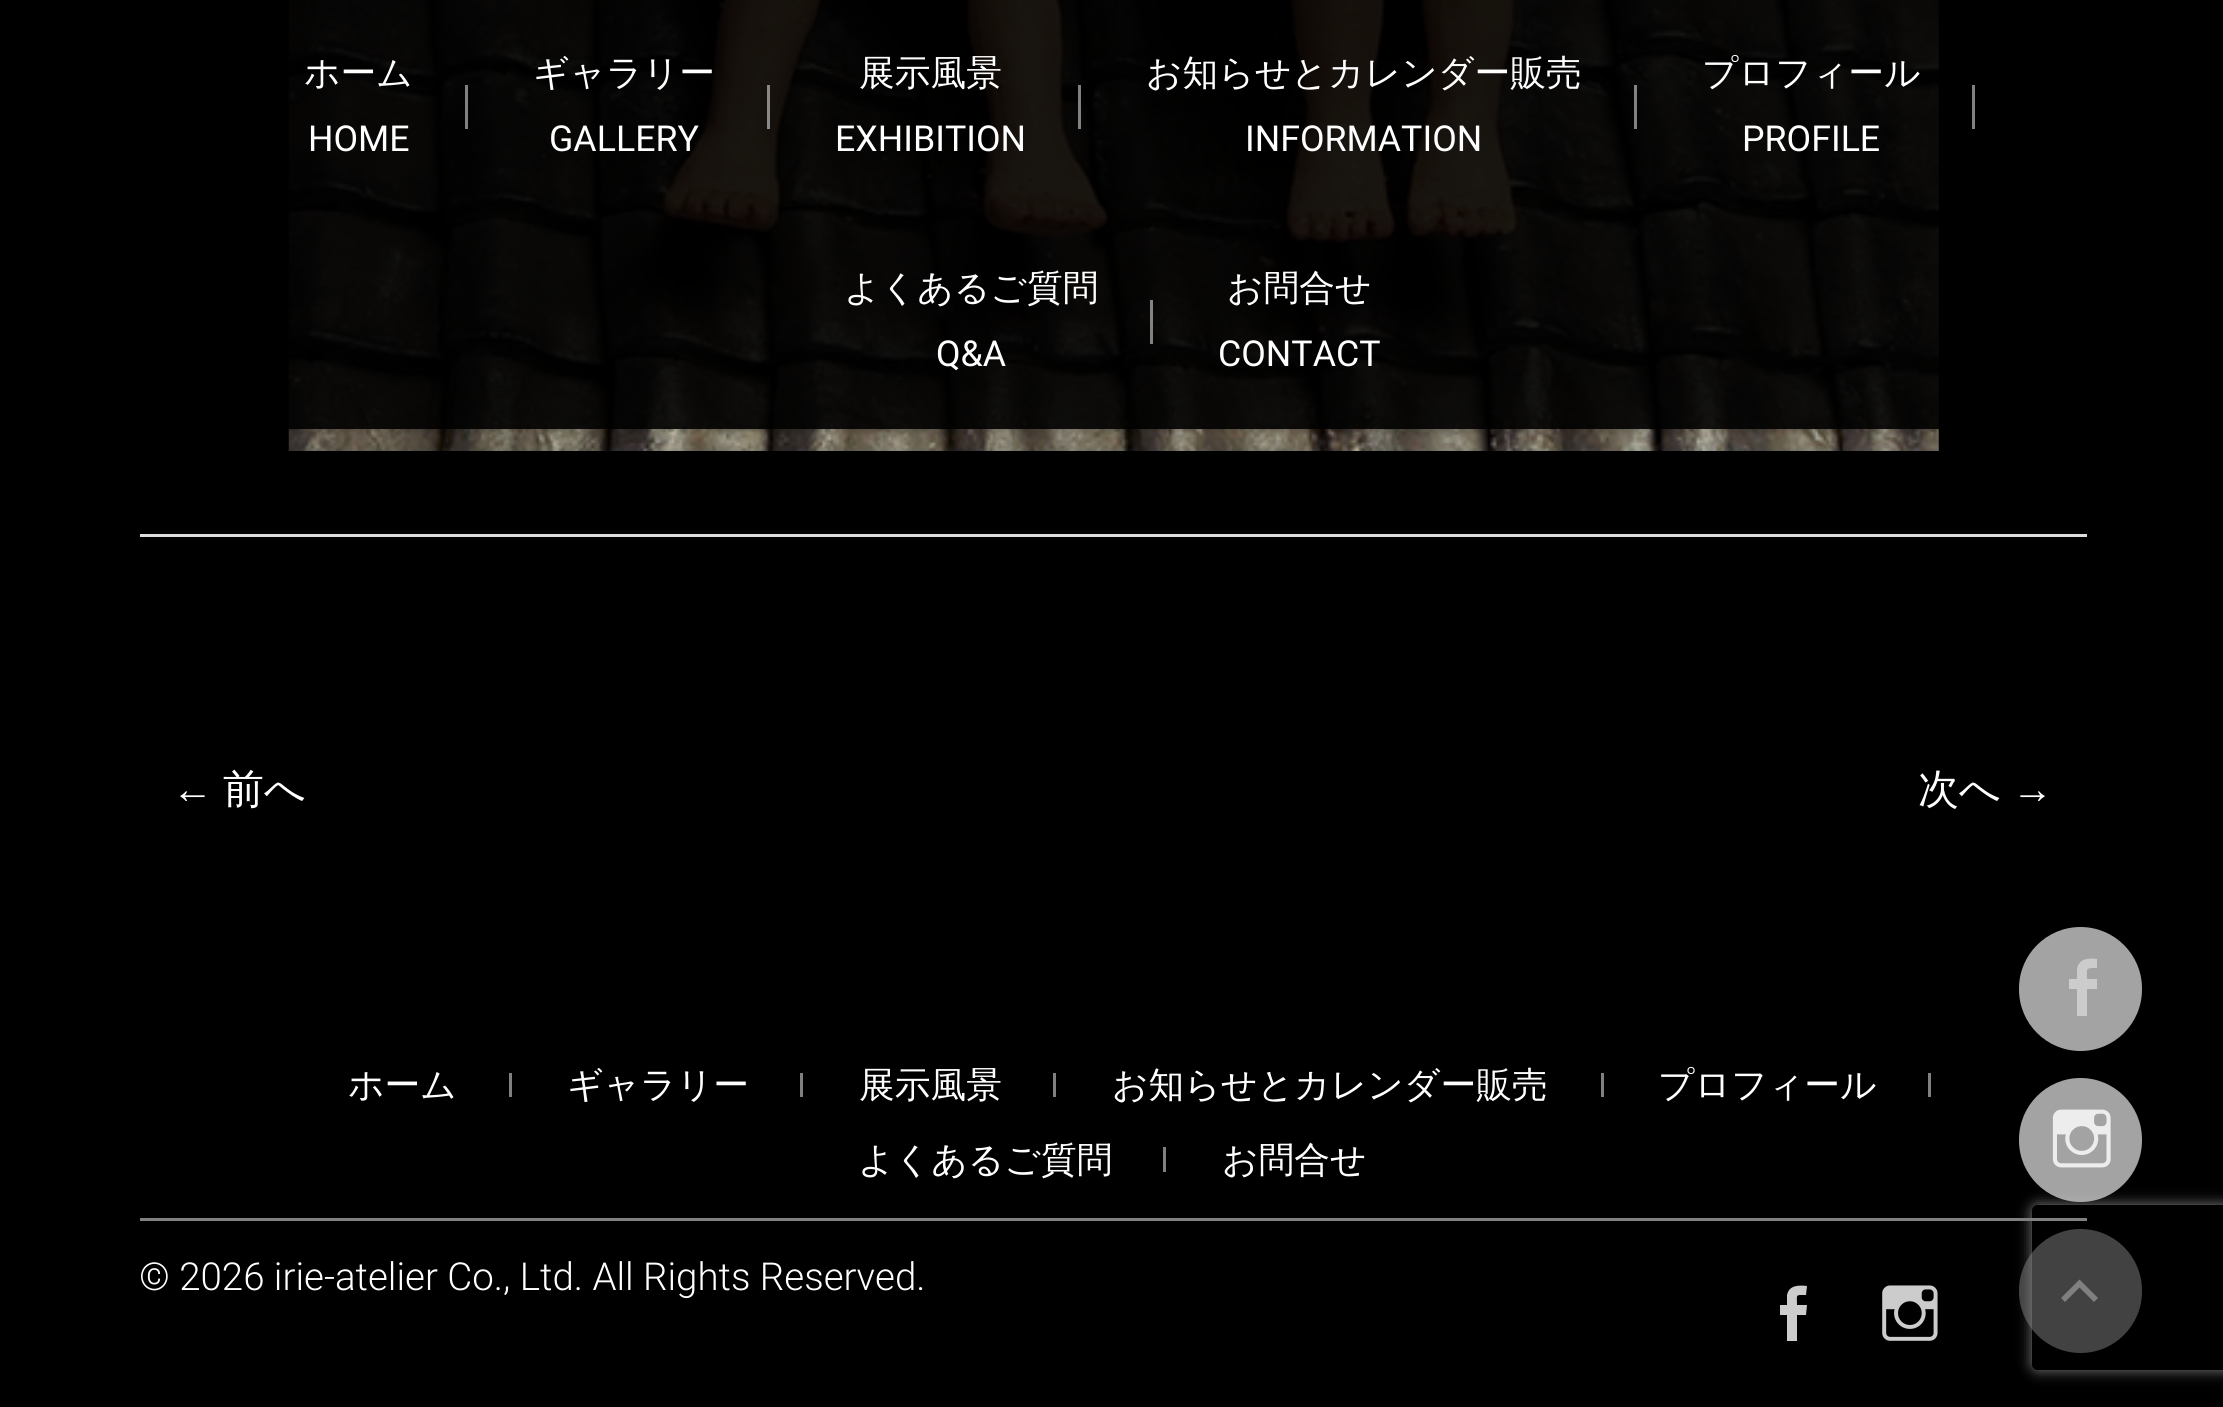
#include <cairo/cairo.h>
#include <math.h>
#include <stddef.h>

static cairo_t *cr;

static void use_color(int r, int g, int b) {
  cairo_set_source_rgb(cr, r / 255.0, g / 255.0, b / 255.0);
}

static void text(double x, double y, const char *s, const char *family, double size, int italic, int bold, int r, int g, int b) {
  cairo_select_font_face(cr, family, italic ? CAIRO_FONT_SLANT_ITALIC : CAIRO_FONT_SLANT_NORMAL,
    bold ? CAIRO_FONT_WEIGHT_BOLD : CAIRO_FONT_WEIGHT_NORMAL);
  cairo_set_font_size(cr, size);
  use_color(r, g, b);
  cairo_move_to(cr, x, y);
  cairo_show_text(cr, s);
}

static void box(double x, double y, double w, double h, int r, int g, int b) {
  use_color(r, g, b);
  cairo_rectangle(cr, x, y, w, h);
  cairo_fill(cr);
}

static void round_rect(double x, double y, double w, double h, double r) {
  cairo_new_sub_path(cr);
  cairo_arc(cr, x + w - r, y + h - r, r, 0, M_PI / 2);
  cairo_arc(cr, x + r, y + h - r, r, M_PI / 2, M_PI);
  cairo_arc(cr, x + r, y + r, r, M_PI, 1.5 * M_PI);
  cairo_arc(cr, x + w - r, y + r, r, 1.5 * M_PI, 2 * M_PI);
  cairo_close_path(cr);
}

static void shadow(double x, double y, double w, double h, double r, double blur, double alpha) {
  cairo_push_group_with_content(cr, CAIRO_CONTENT_ALPHA);
  cairo_set_operator(cr, CAIRO_OPERATOR_SOURCE);
  for (int i = 15; i >= -15 && fmin(w, h) + blur * i / 3 > 0; i -= 2) {
    double e = blur * i / 6;
    cairo_set_source_rgba(cr, 0, 0, 0, alpha * erfc((i - 1) / 8.5) / 2);
    round_rect(x - e, y - e, w + 2 * e, h + 2 * e, fmax(0, fmin(r + e + blur * .6, fmin(w, h) / 2 + e)));
    cairo_fill(cr);
  }
  cairo_pattern_t *soft = cairo_pop_group(cr);
  cairo_mask(cr, soft);
  cairo_pattern_destroy(soft);
}

static void picture(const char *path, double x, double y, double w, double h) {
  cairo_surface_t *image = cairo_image_surface_create_from_png(path);
  cairo_save(cr);
  cairo_set_source_surface(cr, image, x, y);
  cairo_rectangle(cr, x, y, w, h);
  cairo_fill(cr);
  cairo_restore(cr);
  cairo_surface_destroy(image);
}

static void draw(void) {
  use_color(0, 0, 0);
  cairo_paint(cr);
  picture("img_01.png", 288, 0, 1651, 451);
  cairo_save(cr);
  cairo_rectangle(cr, 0, 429, 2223, 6);
  cairo_clip(cr);
  shadow(0, 3, 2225, 429, 0, 3, 0.15);
  cairo_restore(cr);
  box(465, 85, 3, 44, 129, 129, 129);
  box(767, 85, 3, 44, 138, 136, 134);
  cairo_set_source_rgba(cr, 1, 1, 1, 0.5);
  cairo_rectangle(cr, 1078, 85, 3, 44);
  cairo_fill(cr);
  cairo_rectangle(cr, 1634, 85, 3, 44);
  cairo_fill(cr);
  box(1972, 85, 3, 44, 128, 128, 128);
  cairo_set_source_rgba(cr, 1, 1, 1, 0.5);
  cairo_rectangle(cr, 1150, 300, 3, 44);
  cairo_fill(cr);
  box(140, 534, 1947, 3, 221, 221, 221);
  box(140, 1218, 1947, 3, 128, 128, 128);
  box(509, 1073, 3, 24, 128, 128, 128);
  box(800, 1073, 3, 24, 128, 128, 128);
  box(1053, 1073, 3, 24, 128, 128, 128);
  box(1601, 1073, 3, 24, 128, 128, 128);
  box(1928, 1073, 3, 24, 128, 128, 128);
  box(1163, 1147, 3, 25, 128, 128, 128);
  use_color(204, 204, 204);
  cairo_new_path(cr);
  cairo_move_to(cr, 1797, 1305);
  cairo_line_to(cr, 1807, 1305);
  cairo_line_to(cr, 1806, 1315);
  cairo_line_to(cr, 1797, 1315);
  cairo_line_to(cr, 1797, 1341);
  cairo_line_to(cr, 1787, 1341);
  cairo_line_to(cr, 1787, 1315);
  cairo_line_to(cr, 1780, 1315);
  cairo_line_to(cr, 1780, 1305);
  cairo_line_to(cr, 1787, 1305);
  cairo_line_to(cr, 1787, 1295);
  cairo_curve_to(cr, 1789, 1285, 1799, 1285, 1807, 1286);
  cairo_line_to(cr, 1806, 1295);
  cairo_curve_to(cr, 1795, 1295, 1797, 1294, 1797, 1305);
  cairo_close_path(cr);
  cairo_fill(cr);
  picture("img_02.png", 1882, 1285, 56, 56);
  use_color(163, 163, 163);
  round_rect(2019, 927, 123, 124, 61.5);
  cairo_fill(cr);
  use_color(204, 204, 204);
  cairo_new_path(cr);
  cairo_move_to(cr, 2087, 979);
  cairo_line_to(cr, 2097, 979);
  cairo_line_to(cr, 2097, 989);
  cairo_line_to(cr, 2087, 989);
  cairo_line_to(cr, 2087, 1016);
  cairo_line_to(cr, 2077, 1016);
  cairo_line_to(cr, 2077, 989);
  cairo_line_to(cr, 2069, 989);
  cairo_line_to(cr, 2069, 979);
  cairo_line_to(cr, 2077, 979);
  cairo_line_to(cr, 2077, 969);
  cairo_curve_to(cr, 2079, 958, 2089, 958, 2097, 959);
  cairo_line_to(cr, 2097, 968);
  cairo_curve_to(cr, 2085, 968, 2087, 968, 2087, 979);
  cairo_close_path(cr);
  cairo_fill(cr);
  cairo_save(cr);
  cairo_set_fill_rule(cr, CAIRO_FILL_RULE_EVEN_ODD);
  cairo_new_path(cr);
  cairo_move_to(cr, 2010, 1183);
  cairo_line_to(cr, 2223, 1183);
  cairo_line_to(cr, 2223, 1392);
  cairo_line_to(cr, 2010, 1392);
  cairo_close_path(cr);
  cairo_move_to(cr, 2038, 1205);
  cairo_line_to(cr, 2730, 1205);
  cairo_curve_to(cr, 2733.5, 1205, 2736, 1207.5, 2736, 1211);
  cairo_line_to(cr, 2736, 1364);
  cairo_curve_to(cr, 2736, 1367.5, 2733.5, 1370, 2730, 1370);
  cairo_line_to(cr, 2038, 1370);
  cairo_curve_to(cr, 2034.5, 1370, 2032, 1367.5, 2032, 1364);
  cairo_line_to(cr, 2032, 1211);
  cairo_curve_to(cr, 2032, 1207.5, 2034.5, 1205, 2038, 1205);
  cairo_close_path(cr);
  cairo_clip(cr);
  use_color(128, 128, 128);
  shadow(2032, 1205, 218, 165, 6, 7, 1);
  cairo_restore(cr);
  cairo_set_source_rgba(cr, 0.8, 0.8, 0.8, 0.8);
  round_rect(2019, 1078, 123, 124, 61.5);
  cairo_fill(cr);
  picture("img_03.png", 2052, 1109, 59, 59);
  cairo_set_source_rgba(cr, 0.518, 0.518, 0.518, 0.5);
  round_rect(2019, 1229, 123, 124, 61.5);
  cairo_fill(cr);
  use_color(128, 128, 128);
  cairo_new_path(cr);
  cairo_move_to(cr, 2094, 1302);
  cairo_line_to(cr, 2079.5, 1287.5);
  cairo_line_to(cr, 2065, 1302);
  cairo_line_to(cr, 2061, 1298);
  cairo_line_to(cr, 2079.5, 1279.5);
  cairo_line_to(cr, 2098, 1298);
  cairo_close_path(cr);
  cairo_fill(cr);
  text(304, 85, "ホーム", "WenQuanYi Zen Hei Medium", 35.75, 0, 0, 255, 255, 255);
  text(308, 151, "HOME", "Roboto", 35.75, 0, 0, 255, 255, 255);
  text(533, 85, "ギャラリー", "WenQuanYi Zen Hei Medium", 35.75, 0, 0, 255, 255, 255);
  text(549, 151, "GALLERY", "Roboto", 35.75, 0, 0, 255, 255, 255);
  text(859, 85, "展示風景", "WenQuanYi Zen Hei Medium", 35.75, 0, 0, 255, 255, 255);
  text(835, 151, "EXHIBITION", "Roboto", 35.75, 0, 0, 255, 255, 255);
  text(1146, 85, "お知らせとカレンダー販売", "WenQuanYi Zen Hei Medium", 35.75, 0, 0, 255, 255, 255);
  text(1245, 151, "INFORMATION", "Roboto", 35.75, 0, 0, 255, 255, 255);
  text(1702, 85, "プロフィール", "WenQuanYi Zen Hei Medium", 35.75, 0, 0, 255, 255, 255);
  text(1742, 151, "PROFILE", "Roboto", 35.75, 0, 0, 255, 255, 255);
  text(844, 300, "よくあるご質問", "WenQuanYi Zen Hei Medium", 35.75, 0, 0, 255, 255, 255);
  text(936, 366, "Q&A", "Roboto", 35.75, 0, 0, 255, 255, 255);
  text(1227, 300, "お問合せ", "WenQuanYi Zen Hei Medium", 35.75, 0, 0, 255, 255, 255);
  text(1218, 366, "CONTACT", "Roboto", 35.75, 0, 0, 255, 255, 255);
  text(172, 803, "←", "Liberation Sans", 41, 0, 0, 255, 255, 255);
  text(223, 803, "前へ", "WenQuanYi Zen Hei Medium", 41, 0, 0, 255, 255, 255);
  text(1918, 803, "次へ", "WenQuanYi Zen Hei Medium", 41, 0, 0, 255, 255, 255);
  text(2012, 803, "→", "Liberation Sans", 41, 0, 0, 255, 255, 255);
  text(348, 1097, "ホーム", "WenQuanYi Zen Hei Medium", 35.75, 0, 0, 255, 255, 255);
  text(567, 1097, "ギャラリー", "WenQuanYi Zen Hei Medium", 35.75, 0, 0, 255, 255, 255);
  text(859, 1097, "展示風景", "WenQuanYi Zen Hei Medium", 35.75, 0, 0, 255, 255, 255);
  text(1112, 1097, "お知らせとカレンダー販売", "WenQuanYi Zen Hei Medium", 35.75, 0, 0, 255, 255, 255);
  text(1658, 1097, "プロフィール", "WenQuanYi Zen Hei Medium", 35.75, 0, 0, 255, 255, 255);
  text(858, 1172, "よくあるご質問", "WenQuanYi Zen Hei Medium", 35.75, 0, 0, 255, 255, 255);
  text(1222, 1172, "お問合せ", "WenQuanYi Zen Hei Medium", 35.75, 0, 0, 255, 255, 255);
  text(139, 1290, "© 2026 irie-atelier Co., Ltd. All Rights Reserved.", "Roboto Light", 38.5, 0, 0, 255, 255, 255);
}

int main(void) {
  cairo_surface_t *surface = cairo_image_surface_create(CAIRO_FORMAT_RGB24, 2223, 1407);
  cr = cairo_create(surface);
  cairo_font_options_t *options = cairo_font_options_create();
  cairo_font_options_set_hint_metrics(options, CAIRO_HINT_METRICS_OFF);
  cairo_font_options_set_hint_style(options, CAIRO_HINT_STYLE_NONE);
  cairo_set_font_options(cr, options);
  cairo_set_miter_limit(cr, 4);
  draw();
  cairo_surface_write_to_png(surface, "out.png");
  cairo_font_options_destroy(options);
  cairo_destroy(cr);
  cairo_surface_destroy(surface);
  return 0;
}
